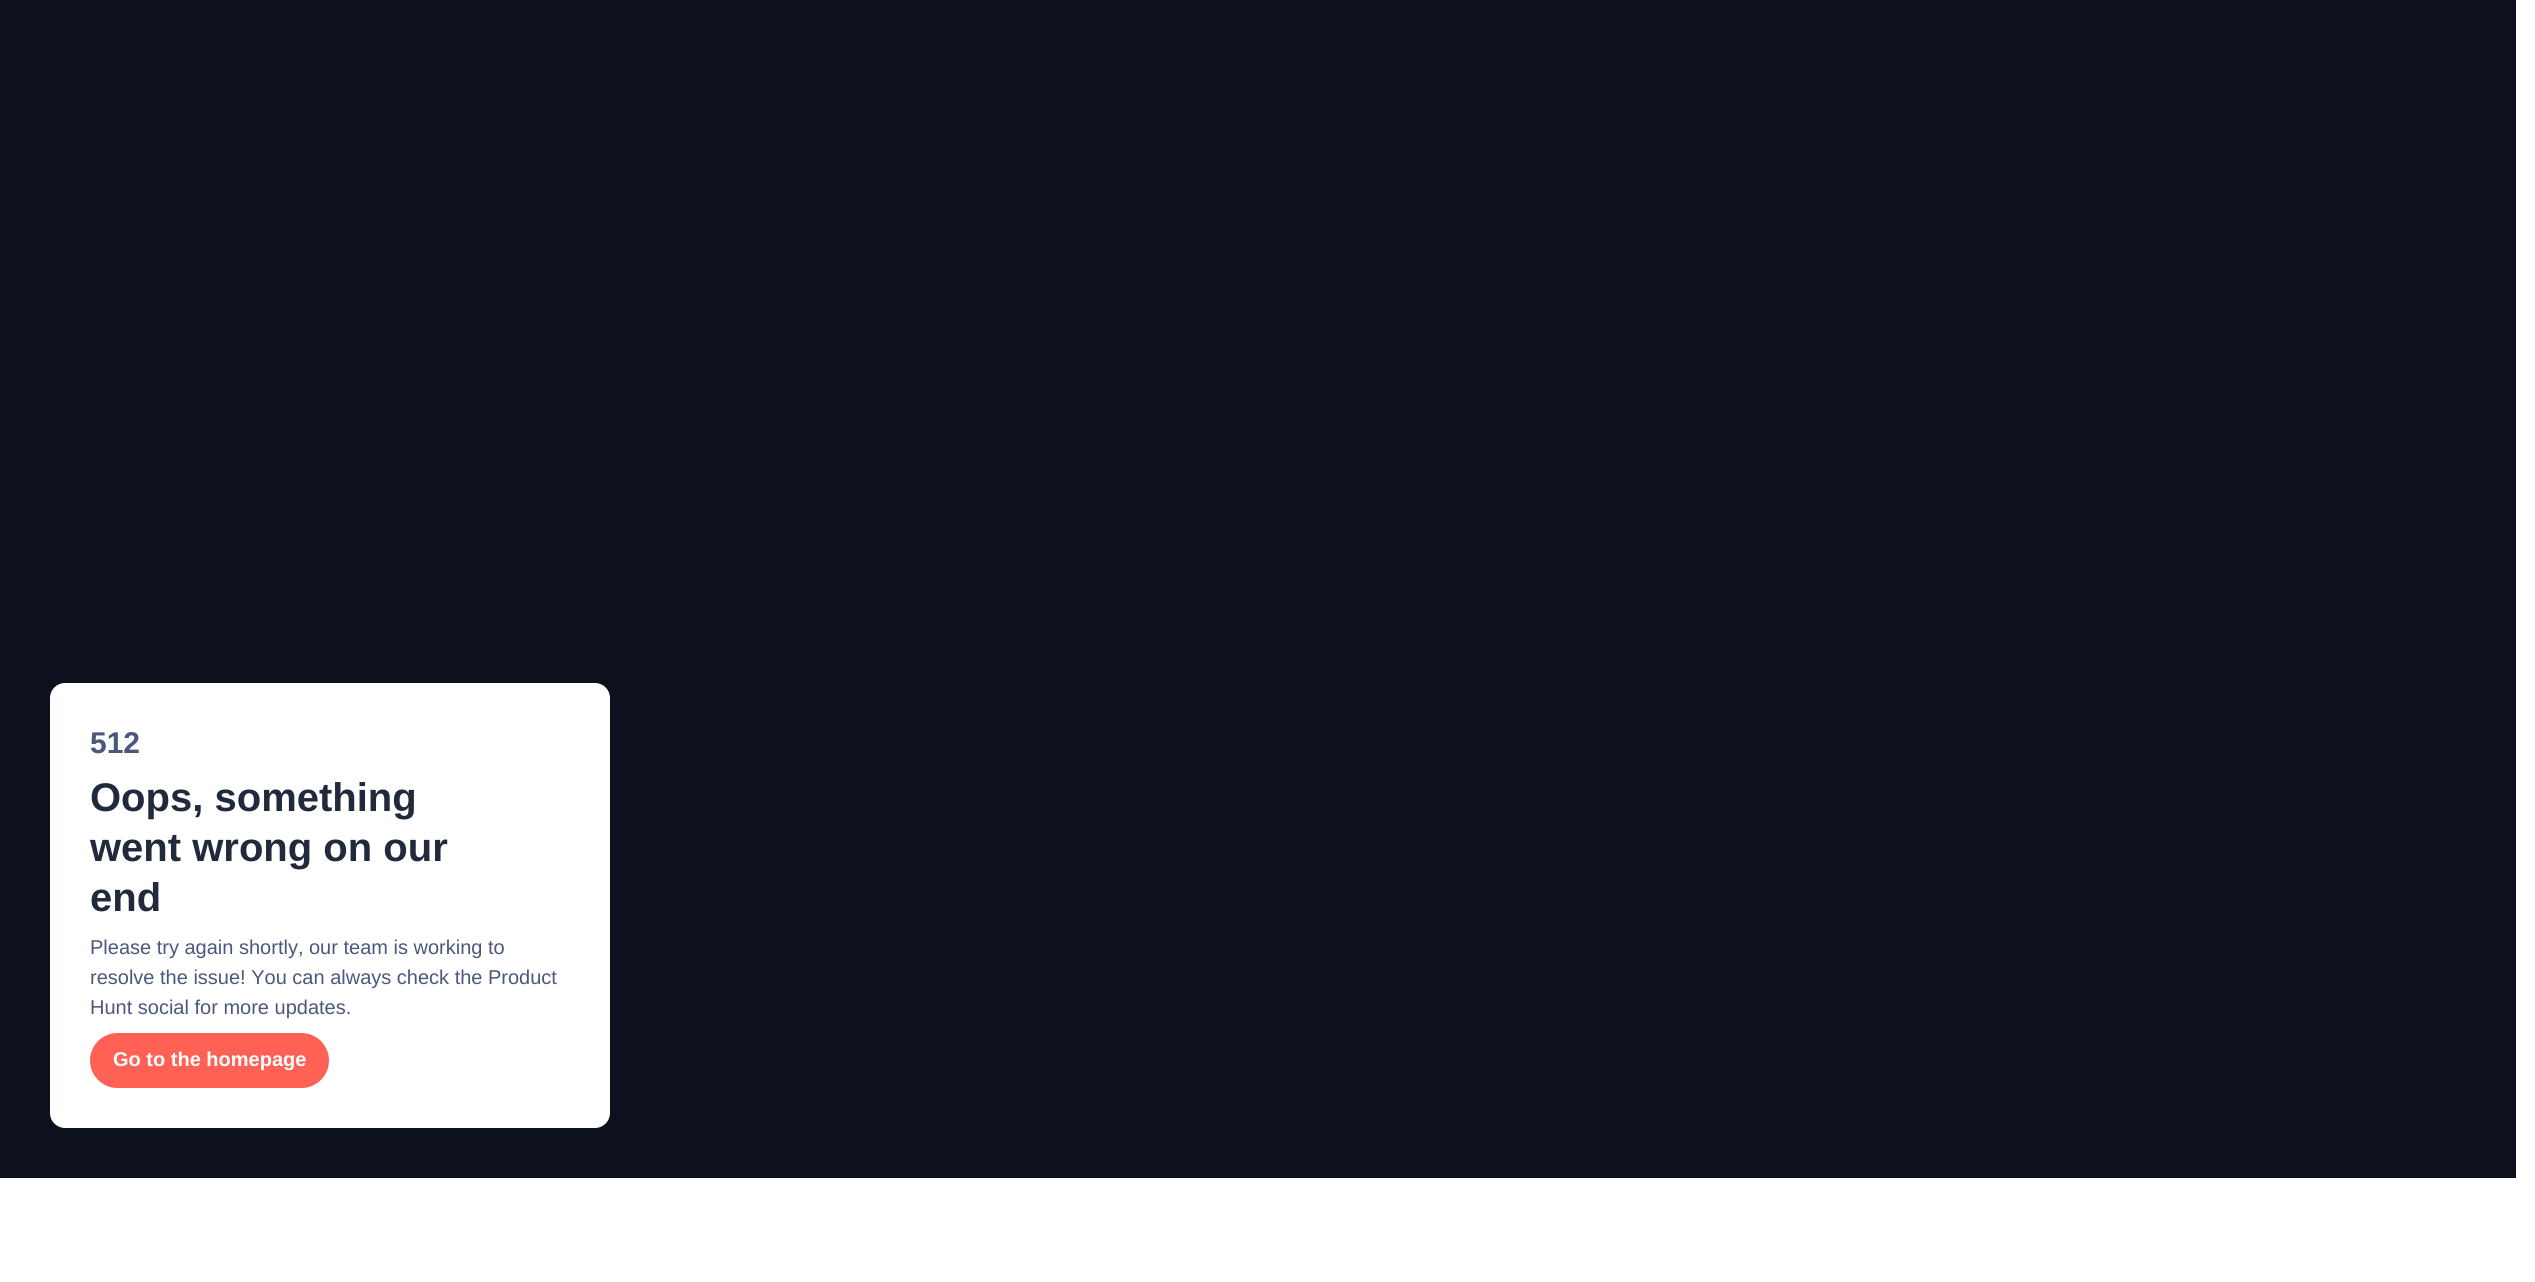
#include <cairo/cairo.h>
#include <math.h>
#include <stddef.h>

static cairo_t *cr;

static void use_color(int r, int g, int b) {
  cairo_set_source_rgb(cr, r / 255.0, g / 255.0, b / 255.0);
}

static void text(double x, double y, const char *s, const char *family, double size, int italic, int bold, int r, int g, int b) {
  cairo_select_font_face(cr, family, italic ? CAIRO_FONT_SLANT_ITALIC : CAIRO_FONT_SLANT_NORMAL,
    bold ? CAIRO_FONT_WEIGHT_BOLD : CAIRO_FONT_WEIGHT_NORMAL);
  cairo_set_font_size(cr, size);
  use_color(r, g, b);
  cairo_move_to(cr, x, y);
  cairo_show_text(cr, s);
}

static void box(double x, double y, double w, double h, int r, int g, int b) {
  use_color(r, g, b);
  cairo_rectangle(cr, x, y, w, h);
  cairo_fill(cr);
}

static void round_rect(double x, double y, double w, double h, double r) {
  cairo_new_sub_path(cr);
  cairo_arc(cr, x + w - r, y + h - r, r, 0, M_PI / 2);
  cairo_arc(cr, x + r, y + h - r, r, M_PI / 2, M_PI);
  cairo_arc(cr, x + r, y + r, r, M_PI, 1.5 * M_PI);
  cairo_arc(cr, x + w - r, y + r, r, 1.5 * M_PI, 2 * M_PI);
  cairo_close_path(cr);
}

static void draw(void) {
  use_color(255, 255, 255);
  cairo_paint(cr);
  box(0, 0, 2516, 1178, 12, 17, 29);
  use_color(255, 255, 255);
  round_rect(50, 683, 560, 445, 15);
  cairo_fill(cr);
  use_color(255, 97, 84);
  round_rect(91.5, 1034.5, 236, 52, 26);
  cairo_fill_preserve(cr);
  cairo_set_line_width(cr, 3);
  cairo_stroke(cr);
  text(90, 753, "512", "Liberation Sans", 30, 0, 1, 75, 88, 124);
  text(90, 811, "Oops, something", "Liberation Sans", 40, 0, 1, 33, 41, 60);
  text(90, 861, "went wrong on our", "Liberation Sans", 40, 0, 1, 33, 41, 60);
  text(90, 911, "end", "Liberation Sans", 40, 0, 1, 33, 41, 60);
  text(90, 954, "Please try again shortly, our team is working to", "Liberation Sans", 20, 0, 0, 75, 88, 124);
  text(90, 984, "resolve the issue! You can always check the Product", "Liberation Sans", 20, 0, 0, 75, 88, 124);
  text(90, 1014, "Hunt social for more updates.", "Liberation Sans", 20, 0, 0, 75, 88, 124);
  text(113, 1066, "Go to the homepage", "Liberation Sans", 20, 0, 1, 255, 255, 255);
}

int main(void) {
  cairo_surface_t *surface = cairo_image_surface_create(CAIRO_FORMAT_RGB24, 2535, 1282);
  cr = cairo_create(surface);
  cairo_font_options_t *options = cairo_font_options_create();
  cairo_font_options_set_hint_metrics(options, CAIRO_HINT_METRICS_OFF);
  cairo_font_options_set_hint_style(options, CAIRO_HINT_STYLE_NONE);
  cairo_set_font_options(cr, options);
  cairo_set_miter_limit(cr, 4);
  draw();
  cairo_surface_write_to_png(surface, "out.png");
  cairo_font_options_destroy(options);
  cairo_destroy(cr);
  cairo_surface_destroy(surface);
  return 0;
}
